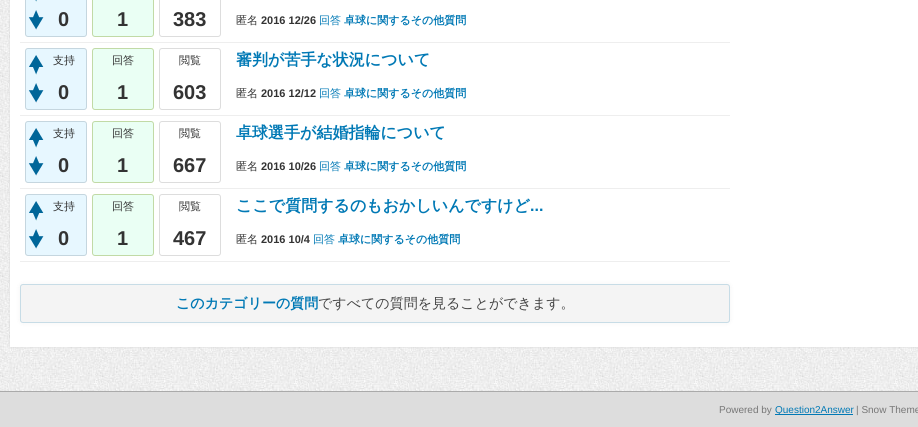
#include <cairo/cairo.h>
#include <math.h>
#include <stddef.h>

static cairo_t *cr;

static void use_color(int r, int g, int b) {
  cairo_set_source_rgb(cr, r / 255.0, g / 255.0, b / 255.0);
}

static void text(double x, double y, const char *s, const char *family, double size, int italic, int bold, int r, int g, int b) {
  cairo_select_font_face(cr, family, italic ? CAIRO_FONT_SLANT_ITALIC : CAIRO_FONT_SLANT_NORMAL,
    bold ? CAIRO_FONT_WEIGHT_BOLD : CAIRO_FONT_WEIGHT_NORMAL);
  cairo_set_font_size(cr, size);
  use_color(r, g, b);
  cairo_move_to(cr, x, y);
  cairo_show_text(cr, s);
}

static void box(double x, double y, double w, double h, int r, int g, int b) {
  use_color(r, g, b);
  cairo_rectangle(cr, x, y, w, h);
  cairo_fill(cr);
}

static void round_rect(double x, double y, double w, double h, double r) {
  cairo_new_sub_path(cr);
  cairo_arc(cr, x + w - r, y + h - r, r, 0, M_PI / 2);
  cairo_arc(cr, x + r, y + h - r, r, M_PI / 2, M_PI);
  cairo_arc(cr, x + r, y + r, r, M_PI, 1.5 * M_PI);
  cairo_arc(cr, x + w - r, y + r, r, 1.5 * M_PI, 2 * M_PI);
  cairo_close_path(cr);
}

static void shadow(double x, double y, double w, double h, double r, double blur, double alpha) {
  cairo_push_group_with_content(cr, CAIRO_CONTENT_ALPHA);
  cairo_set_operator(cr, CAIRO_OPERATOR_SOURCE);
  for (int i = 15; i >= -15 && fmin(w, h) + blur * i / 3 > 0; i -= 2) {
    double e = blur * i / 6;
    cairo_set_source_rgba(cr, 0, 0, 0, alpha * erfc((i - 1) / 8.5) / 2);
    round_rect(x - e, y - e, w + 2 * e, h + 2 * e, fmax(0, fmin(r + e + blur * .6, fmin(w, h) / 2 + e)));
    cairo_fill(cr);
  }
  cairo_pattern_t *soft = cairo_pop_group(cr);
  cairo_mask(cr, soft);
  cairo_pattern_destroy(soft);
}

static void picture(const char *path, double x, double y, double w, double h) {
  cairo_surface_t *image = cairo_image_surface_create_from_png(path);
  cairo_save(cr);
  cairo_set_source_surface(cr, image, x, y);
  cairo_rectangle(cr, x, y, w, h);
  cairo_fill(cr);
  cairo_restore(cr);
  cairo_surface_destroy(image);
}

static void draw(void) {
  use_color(255, 255, 255);
  cairo_paint(cr);
  picture("img_01.png", 0, 0, 918, 391);
  use_color(0, 0, 0);
  shadow(10, -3, 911, 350, 0, 1, 0.1);
  box(10, 0, 908, 347, 255, 255, 255);
  box(20, 42, 710, 1, 238, 238, 238);
  use_color(231, 247, 255);
  round_rect(25.5, -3.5, 61, 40, 2.5);
  cairo_fill_preserve(cr);
  use_color(197, 214, 223);
  cairo_set_line_width(cr, 1);
  cairo_stroke(cr);
  picture("img_02.png", 35, 0, 2, 2);
  picture("img_03.png", 28, 10, 16, 20);
  use_color(234, 255, 244);
  round_rect(92.5, -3.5, 61, 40, 2.5);
  cairo_fill_preserve(cr);
  use_color(193, 218, 166);
  cairo_stroke(cr);
  round_rect(159.5, -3.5, 61, 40, 2.5);
  use_color(221, 221, 221);
  cairo_stroke(cr);
  box(20, 115, 710, 1, 238, 238, 238);
  use_color(231, 247, 255);
  round_rect(25.5, 48.5, 61, 61, 2.5);
  cairo_fill_preserve(cr);
  use_color(197, 214, 223);
  cairo_stroke(cr);
  picture("img_04.png", 29, 55, 15, 20);
  picture("img_03.png", 28, 83, 16, 20);
  use_color(234, 255, 244);
  round_rect(92.5, 48.5, 61, 61, 2.5);
  cairo_fill_preserve(cr);
  use_color(193, 218, 166);
  cairo_stroke(cr);
  round_rect(159.5, 48.5, 61, 61, 2.5);
  use_color(221, 221, 221);
  cairo_stroke(cr);
  box(20, 188, 710, 1, 238, 238, 238);
  use_color(231, 247, 255);
  round_rect(25.5, 121.5, 61, 61, 2.5);
  cairo_fill_preserve(cr);
  use_color(197, 214, 223);
  cairo_stroke(cr);
  picture("img_04.png", 29, 128, 15, 20);
  picture("img_03.png", 28, 156, 16, 20);
  use_color(234, 255, 244);
  round_rect(92.5, 121.5, 61, 61, 2.5);
  cairo_fill_preserve(cr);
  use_color(193, 218, 166);
  cairo_stroke(cr);
  round_rect(159.5, 121.5, 61, 61, 2.5);
  use_color(221, 221, 221);
  cairo_stroke(cr);
  box(20, 261, 710, 1, 238, 238, 238);
  use_color(231, 247, 255);
  round_rect(25.5, 194.5, 61, 61, 2.5);
  cairo_fill_preserve(cr);
  use_color(197, 214, 223);
  cairo_stroke(cr);
  picture("img_04.png", 29, 201, 15, 20);
  picture("img_03.png", 28, 229, 16, 20);
  use_color(234, 255, 244);
  round_rect(92.5, 194.5, 61, 61, 2.5);
  cairo_fill_preserve(cr);
  use_color(193, 218, 166);
  cairo_stroke(cr);
  round_rect(159.5, 194.5, 61, 61, 2.5);
  use_color(221, 221, 221);
  cairo_stroke(cr);
  use_color(0, 0, 0);
  shadow(20, 284, 710, 39, 3, 2.5, 0.05);
  use_color(244, 244, 244);
  round_rect(20.5, 284.5, 709, 38, 2.5);
  cairo_fill_preserve(cr);
  use_color(199, 220, 230);
  cairo_stroke(cr);
  box(0, 392, 918, 35, 221, 221, 221);
  box(0, 391, 918, 1, 170, 170, 170);
  box(775, 414, 78, 1, 1, 121, 181);
  text(58, 26, "0", "Liberation Sans", 20, 0, 1, 51, 51, 51);
  text(117, 26, "1", "Liberation Sans", 20, 0, 1, 51, 51, 51);
  text(173, 26, "383", "Liberation Sans", 20, 0, 1, 51, 51, 51);
  text(236, 24, "匿名", "WenQuanYi Zen Hei Medium", 11, 0, 0, 51, 51, 51);
  text(261, 24, "2016 12/26", "Liberation Sans", 11, 0, 1, 51, 51, 51);
  text(319, 24, "回答", "WenQuanYi Zen Hei Medium", 11, 0, 0, 1, 121, 181);
  text(344, 24, "卓球に関するその他質問", "WenQuanYi Zen Hei", 11, 0, 1, 1, 121, 181);
  text(53, 64, "支持", "WenQuanYi Zen Hei Medium", 11, 0, 0, 51, 51, 51);
  text(58, 99, "0", "Liberation Sans", 20, 0, 1, 51, 51, 51);
  text(112, 64, "回答", "WenQuanYi Zen Hei Medium", 11, 0, 0, 51, 51, 51);
  text(117, 99, "1", "Liberation Sans", 20, 0, 1, 51, 51, 51);
  text(179, 64, "閲覧", "WenQuanYi Zen Hei Medium", 11, 0, 0, 51, 51, 51);
  text(173, 99, "603", "Liberation Sans", 20, 0, 1, 51, 51, 51);
  text(236, 65, "審判が苦手な状況について", "WenQuanYi Zen Hei", 16, 0, 1, 1, 121, 181);
  text(236, 97, "匿名", "WenQuanYi Zen Hei Medium", 11, 0, 0, 51, 51, 51);
  text(261, 97, "2016 12/12", "Liberation Sans", 11, 0, 1, 51, 51, 51);
  text(319, 97, "回答", "WenQuanYi Zen Hei Medium", 11, 0, 0, 1, 121, 181);
  text(344, 97, "卓球に関するその他質問", "WenQuanYi Zen Hei", 11, 0, 1, 1, 121, 181);
  text(53, 137, "支持", "WenQuanYi Zen Hei Medium", 11, 0, 0, 51, 51, 51);
  text(58, 172, "0", "Liberation Sans", 20, 0, 1, 51, 51, 51);
  text(112, 137, "回答", "WenQuanYi Zen Hei Medium", 11, 0, 0, 51, 51, 51);
  text(117, 172, "1", "Liberation Sans", 20, 0, 1, 51, 51, 51);
  text(179, 137, "閲覧", "WenQuanYi Zen Hei Medium", 11, 0, 0, 51, 51, 51);
  text(173, 172, "667", "Liberation Sans", 20, 0, 1, 51, 51, 51);
  text(236, 138, "卓球選手が結婚指輪について", "WenQuanYi Zen Hei", 16, 0, 1, 1, 121, 181);
  text(236, 170, "匿名", "WenQuanYi Zen Hei Medium", 11, 0, 0, 51, 51, 51);
  text(261, 170, "2016 10/26", "Liberation Sans", 11, 0, 1, 51, 51, 51);
  text(319, 170, "回答", "WenQuanYi Zen Hei Medium", 11, 0, 0, 1, 121, 181);
  text(344, 170, "卓球に関するその他質問", "WenQuanYi Zen Hei", 11, 0, 1, 1, 121, 181);
  text(53, 210, "支持", "WenQuanYi Zen Hei Medium", 11, 0, 0, 51, 51, 51);
  text(58, 245, "0", "Liberation Sans", 20, 0, 1, 51, 51, 51);
  text(112, 210, "回答", "WenQuanYi Zen Hei Medium", 11, 0, 0, 51, 51, 51);
  text(117, 245, "1", "Liberation Sans", 20, 0, 1, 51, 51, 51);
  text(179, 210, "閲覧", "WenQuanYi Zen Hei Medium", 11, 0, 0, 51, 51, 51);
  text(173, 245, "467", "Liberation Sans", 20, 0, 1, 51, 51, 51);
  text(236, 211, "ここで質問するのもおかしいんですけど", "WenQuanYi Zen Hei", 16, 0, 1, 1, 121, 181);
  text(530, 211, "...", "Liberation Sans", 16, 0, 1, 1, 121, 181);
  text(236, 243, "匿名", "WenQuanYi Zen Hei Medium", 11, 0, 0, 51, 51, 51);
  text(261, 243, "2016 10/4", "Liberation Sans", 11, 0, 1, 51, 51, 51);
  text(313, 243, "回答", "WenQuanYi Zen Hei Medium", 11, 0, 0, 1, 121, 181);
  text(338, 243, "卓球に関するその他質問", "WenQuanYi Zen Hei", 11, 0, 1, 1, 121, 181);
  text(176, 308, "このカテゴリーの質問", "WenQuanYi Zen Hei", 14, 0, 1, 1, 121, 181);
  text(318, 308, "ですべての質問を見ることができます。", "WenQuanYi Zen Hei Medium", 14, 0, 0, 68, 68, 68);
  text(719, 413, "Powered by", "Liberation Sans", 10, 0, 0, 119, 119, 119);
  text(775, 413, "Question2Answer", "Liberation Sans", 10, 0, 0, 1, 121, 181);
  text(856, 413, "| Snow Theme", "Liberation Sans", 10, 0, 0, 119, 119, 119);
}

int main(void) {
  cairo_surface_t *surface = cairo_image_surface_create(CAIRO_FORMAT_RGB24, 918, 427);
  cr = cairo_create(surface);
  cairo_font_options_t *options = cairo_font_options_create();
  cairo_font_options_set_hint_metrics(options, CAIRO_HINT_METRICS_OFF);
  cairo_font_options_set_hint_style(options, CAIRO_HINT_STYLE_NONE);
  cairo_set_font_options(cr, options);
  cairo_set_miter_limit(cr, 4);
  draw();
  cairo_surface_write_to_png(surface, "out.png");
  cairo_font_options_destroy(options);
  cairo_destroy(cr);
  cairo_surface_destroy(surface);
  return 0;
}
